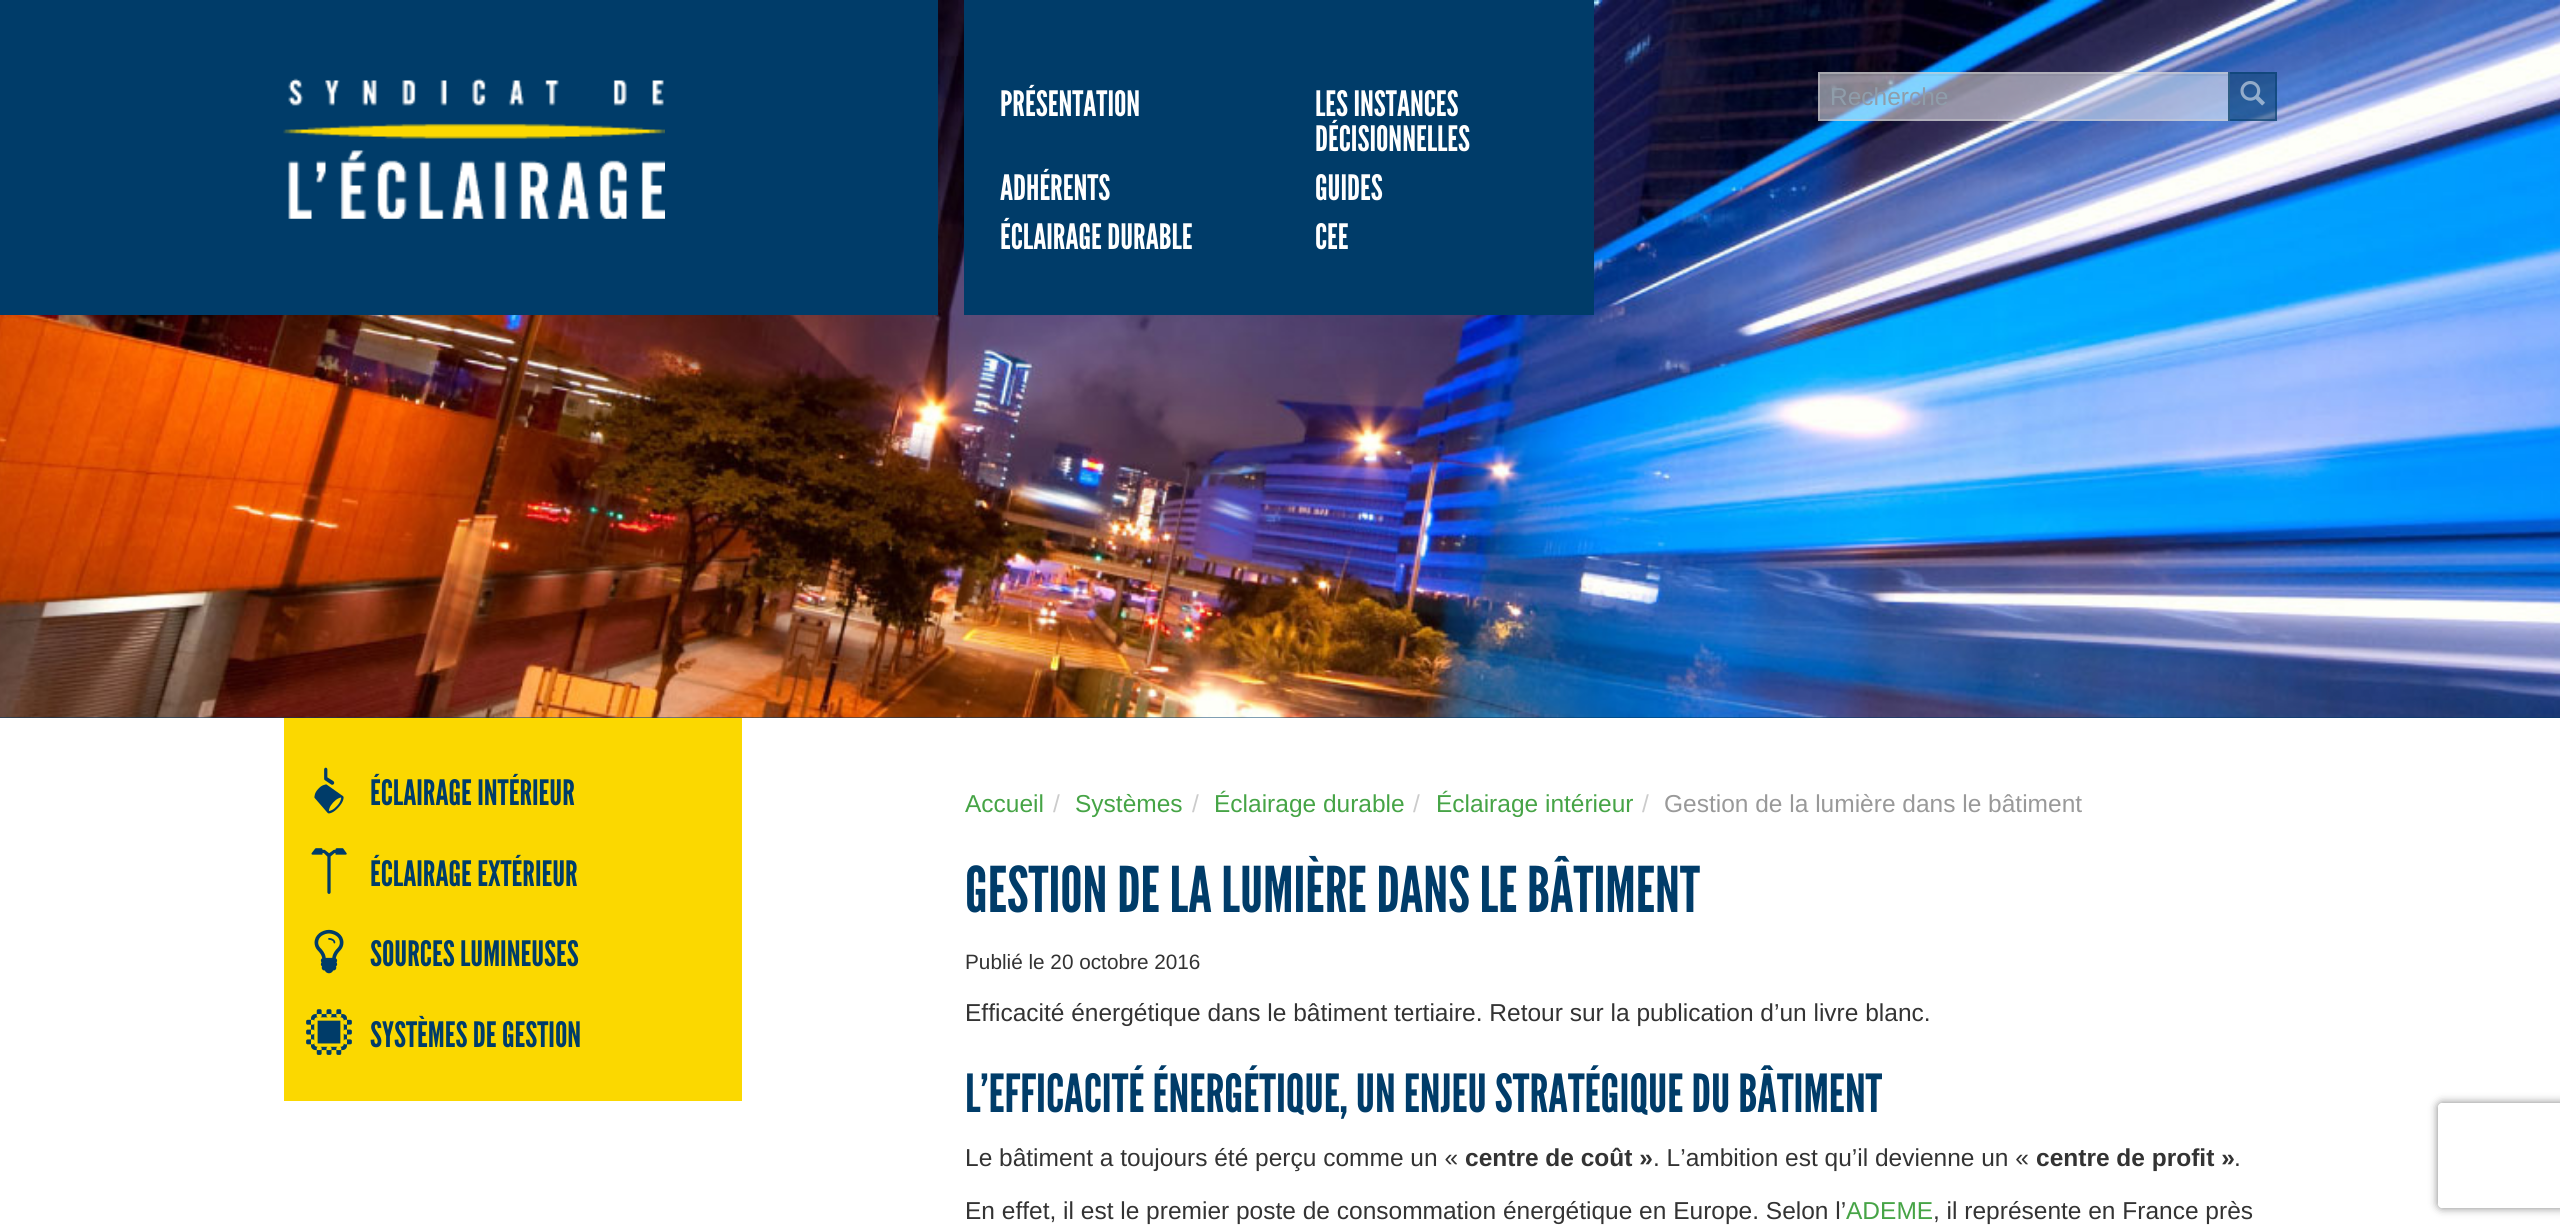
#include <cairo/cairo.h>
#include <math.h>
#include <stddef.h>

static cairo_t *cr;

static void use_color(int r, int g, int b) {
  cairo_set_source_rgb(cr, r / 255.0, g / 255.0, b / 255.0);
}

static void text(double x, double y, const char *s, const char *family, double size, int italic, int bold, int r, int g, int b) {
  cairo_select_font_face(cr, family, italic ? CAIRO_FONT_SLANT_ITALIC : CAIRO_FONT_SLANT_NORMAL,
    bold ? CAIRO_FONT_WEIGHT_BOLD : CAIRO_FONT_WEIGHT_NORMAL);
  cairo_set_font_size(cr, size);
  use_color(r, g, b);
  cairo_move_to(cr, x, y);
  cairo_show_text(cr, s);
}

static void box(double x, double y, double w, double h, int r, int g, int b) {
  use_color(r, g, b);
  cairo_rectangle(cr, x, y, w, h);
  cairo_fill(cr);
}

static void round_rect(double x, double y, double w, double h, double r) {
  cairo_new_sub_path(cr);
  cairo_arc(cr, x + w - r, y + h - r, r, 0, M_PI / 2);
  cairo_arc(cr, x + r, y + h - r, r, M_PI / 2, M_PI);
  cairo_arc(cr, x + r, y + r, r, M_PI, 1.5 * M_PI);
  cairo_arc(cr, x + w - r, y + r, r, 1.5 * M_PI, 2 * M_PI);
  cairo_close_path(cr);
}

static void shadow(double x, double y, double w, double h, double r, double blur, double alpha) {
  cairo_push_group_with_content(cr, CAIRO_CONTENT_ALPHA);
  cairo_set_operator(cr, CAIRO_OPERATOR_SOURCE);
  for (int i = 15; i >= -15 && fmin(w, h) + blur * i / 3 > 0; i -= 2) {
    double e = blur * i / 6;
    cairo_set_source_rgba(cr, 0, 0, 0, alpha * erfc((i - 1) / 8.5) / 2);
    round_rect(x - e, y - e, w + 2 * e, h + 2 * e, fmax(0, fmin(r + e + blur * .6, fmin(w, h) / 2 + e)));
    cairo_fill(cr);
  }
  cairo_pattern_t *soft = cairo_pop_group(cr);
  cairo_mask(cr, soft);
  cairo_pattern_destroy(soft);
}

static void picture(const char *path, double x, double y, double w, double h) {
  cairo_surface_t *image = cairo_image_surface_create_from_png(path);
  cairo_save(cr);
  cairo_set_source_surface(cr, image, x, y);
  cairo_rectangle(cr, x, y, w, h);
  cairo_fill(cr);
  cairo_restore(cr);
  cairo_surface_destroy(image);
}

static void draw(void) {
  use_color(0, 60, 105);
  cairo_paint(cr);
  picture("img_01.png", 0, 0, 2560, 718);
  box(0, 0, 938, 315, 0, 60, 105);
  picture("img_02.png", 283, 78, 382, 141);
  box(964, 0, 630, 315, 0, 60, 105);
  cairo_set_source_rgba(cr, 1, 1, 1, 0.5);
  cairo_rectangle(cr, 1818, 72, 412, 49);
  cairo_fill(cr);
  cairo_set_source_rgba(cr, 0, 0, 0, 0.04);
  cairo_rectangle(cr, 1820, 74, 408, 2);
  cairo_fill(cr);
  cairo_rectangle(cr, 1819, 73, 410, 47);
  cairo_set_source_rgba(cr, 0.8, 0.8, 0.8, 0.5);
  cairo_stroke(cr);
  cairo_set_source_rgba(cr, 0, 0.235, 0.412, 0.5);
  cairo_rectangle(cr, 2228, 72, 49, 49);
  cairo_fill(cr);
  cairo_rectangle(cr, 2229, 73, 47, 47);
  cairo_stroke(cr);
  picture("img_03.png", 2240, 81, 25, 25);
  box(0, 718, 2560, 513, 255, 255, 255);
  box(284, 718, 458, 383, 251, 216, 0);
  picture("img_04.png", 314, 767, 30, 47);
  picture("img_05.png", 311, 848, 36, 46);
  picture("img_06.png", 314, 929, 30, 45);
  picture("img_07.png", 306, 1009, 46, 46);
  cairo_save(cr);
  cairo_set_fill_rule(cr, CAIRO_FILL_RULE_EVEN_ODD);
  cairo_new_path(cr);
  cairo_move_to(cr, 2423, 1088);
  cairo_line_to(cr, 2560, 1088);
  cairo_line_to(cr, 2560, 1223);
  cairo_line_to(cr, 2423, 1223);
  cairo_close_path(cr);
  cairo_move_to(cr, 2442, 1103);
  cairo_line_to(cr, 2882, 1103);
  cairo_curve_to(cr, 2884, 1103, 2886, 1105, 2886, 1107);
  cairo_line_to(cr, 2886, 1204);
  cairo_curve_to(cr, 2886, 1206, 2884, 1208, 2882, 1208);
  cairo_line_to(cr, 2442, 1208);
  cairo_curve_to(cr, 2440, 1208, 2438, 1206, 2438, 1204);
  cairo_line_to(cr, 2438, 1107);
  cairo_curve_to(cr, 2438, 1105, 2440, 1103, 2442, 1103);
  cairo_close_path(cr);
  cairo_clip(cr);
  use_color(128, 128, 128);
  shadow(2438, 1103, 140, 105, 4, 4.5, 1);
  cairo_restore(cr);
  text(1000, 116, "PRÉSENTATION", "League Gothic", 35, 0, 0, 255, 255, 255);
  text(1315, 116, "LES INSTANCES", "League Gothic", 35, 0, 0, 255, 255, 255);
  text(1315, 151, "DÉCISIONNELLES", "League Gothic", 35, 0, 0, 255, 255, 255);
  text(1000, 200, "ADHÉRENTS", "League Gothic", 35, 0, 0, 255, 255, 255);
  text(1315, 200, "GUIDES", "League Gothic", 35, 0, 0, 255, 255, 255);
  text(1000, 249, "ÉCLAIRAGE DURABLE", "League Gothic", 35, 0, 0, 255, 255, 255);
  text(1315, 249, "CEE", "League Gothic", 35, 0, 0, 255, 255, 255);
  text(1830, 105, "Recherche", "Liberation Sans", 24.5, 0, 0, 143, 157, 170);
  text(370, 805, "ÉCLAIRAGE INTÉRIEUR", "League Gothic", 35, 0, 0, 0, 60, 105);
  text(370, 886, "ÉCLAIRAGE EXTÉRIEUR", "League Gothic", 35, 0, 0, 0, 60, 105);
  text(370, 966, "SOURCES LUMINEUSES", "League Gothic", 35, 0, 0, 0, 60, 105);
  text(370, 1047, "SYSTÈMES DE GESTION", "League Gothic", 35, 0, 0, 0, 60, 105);
  text(965, 812, "Accueil", "Liberation Sans", 24.5, 0, 0, 70, 164, 70);
  text(1053, 812, "/", "Liberation Sans", 24.5, 0, 0, 204, 204, 204);
  text(1075, 812, "Systèmes", "Liberation Sans", 24.5, 0, 0, 70, 164, 70);
  text(1192, 812, "/", "Liberation Sans", 24.5, 0, 0, 204, 204, 204);
  text(1214, 812, "Éclairage durable", "Liberation Sans", 24.5, 0, 0, 70, 164, 70);
  text(1413, 812, "/", "Liberation Sans", 24.5, 0, 0, 204, 204, 204);
  text(1436, 812, "Éclairage intérieur", "Liberation Sans", 24.5, 0, 0, 70, 164, 70);
  text(1642, 812, "/", "Liberation Sans", 24.5, 0, 0, 204, 204, 204);
  text(1664, 812, "Gestion de la lumière dans le bâtiment", "Liberation Sans", 24.5, 0, 0, 153, 153, 153);
  text(965, 912, "GESTION DE LA LUMIÈRE DANS LE BÂTIMENT", "League Gothic", 63, 0, 0, 0, 60, 105);
  text(965, 969, "Publié le 20 octobre 2016", "Liberation Sans", 20.75, 0, 0, 51, 51, 51);
  text(965, 1021, "Efficacité énergétique dans le bâtiment tertiaire. Retour sur la publication d’un livre blanc.", "Liberation Sans", 24.5, 0, 0, 51, 51, 51);
  text(965, 1112, "L’EFFICACITÉ ÉNERGÉTIQUE, UN ENJEU STRATÉGIQUE DU BÂTIMENT", "League Gothic", 52.5, 0, 0, 0, 60, 105);
  text(965, 1166, "Le bâtiment a toujours été perçu comme un «", "Liberation Sans", 24.5, 0, 0, 51, 51, 51);
  text(1465, 1166, "centre de coût »", "Liberation Sans", 24.5, 0, 1, 51, 51, 51);
  text(1653, 1166, ". L’ambition est qu’il devienne un «", "Liberation Sans", 24.5, 0, 0, 51, 51, 51);
  text(2036, 1166, "centre de profit »", "Liberation Sans", 24.5, 0, 1, 51, 51, 51);
  text(2234, 1166, ".", "Liberation Sans", 24.5, 0, 0, 51, 51, 51);
  text(965, 1219, "En effet, il est le premier poste de consommation énergétique en Europe. Selon l’", "Liberation Sans", 24.5, 0, 0, 51, 51, 51);
  text(1846, 1219, "ADEME", "Liberation Sans", 24.5, 0, 0, 70, 164, 70);
  text(1933, 1219, ", il représente en France près", "Liberation Sans", 24.5, 0, 0, 51, 51, 51);
}

int main(void) {
  cairo_surface_t *surface = cairo_image_surface_create(CAIRO_FORMAT_RGB24, 2560, 1231);
  cr = cairo_create(surface);
  cairo_font_options_t *options = cairo_font_options_create();
  cairo_font_options_set_hint_metrics(options, CAIRO_HINT_METRICS_OFF);
  cairo_font_options_set_hint_style(options, CAIRO_HINT_STYLE_NONE);
  cairo_set_font_options(cr, options);
  cairo_set_miter_limit(cr, 4);
  draw();
  cairo_surface_write_to_png(surface, "out.png");
  cairo_font_options_destroy(options);
  cairo_destroy(cr);
  cairo_surface_destroy(surface);
  return 0;
}
